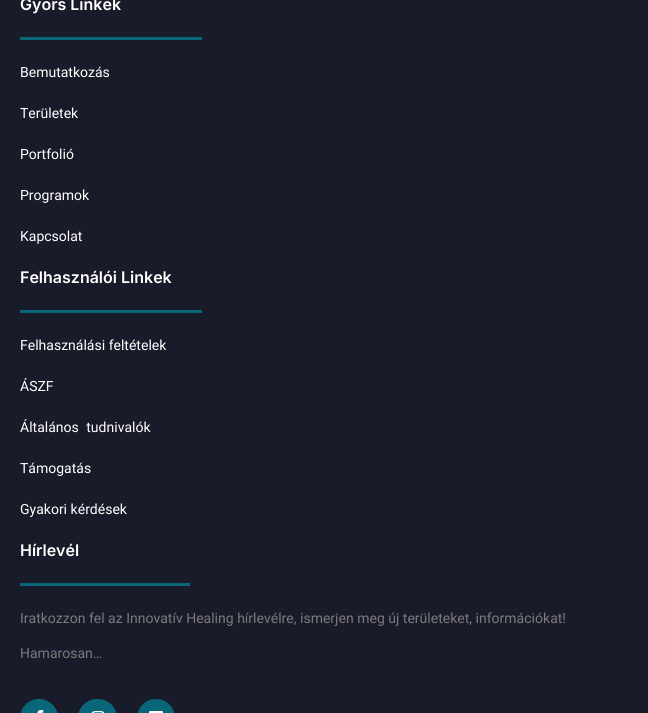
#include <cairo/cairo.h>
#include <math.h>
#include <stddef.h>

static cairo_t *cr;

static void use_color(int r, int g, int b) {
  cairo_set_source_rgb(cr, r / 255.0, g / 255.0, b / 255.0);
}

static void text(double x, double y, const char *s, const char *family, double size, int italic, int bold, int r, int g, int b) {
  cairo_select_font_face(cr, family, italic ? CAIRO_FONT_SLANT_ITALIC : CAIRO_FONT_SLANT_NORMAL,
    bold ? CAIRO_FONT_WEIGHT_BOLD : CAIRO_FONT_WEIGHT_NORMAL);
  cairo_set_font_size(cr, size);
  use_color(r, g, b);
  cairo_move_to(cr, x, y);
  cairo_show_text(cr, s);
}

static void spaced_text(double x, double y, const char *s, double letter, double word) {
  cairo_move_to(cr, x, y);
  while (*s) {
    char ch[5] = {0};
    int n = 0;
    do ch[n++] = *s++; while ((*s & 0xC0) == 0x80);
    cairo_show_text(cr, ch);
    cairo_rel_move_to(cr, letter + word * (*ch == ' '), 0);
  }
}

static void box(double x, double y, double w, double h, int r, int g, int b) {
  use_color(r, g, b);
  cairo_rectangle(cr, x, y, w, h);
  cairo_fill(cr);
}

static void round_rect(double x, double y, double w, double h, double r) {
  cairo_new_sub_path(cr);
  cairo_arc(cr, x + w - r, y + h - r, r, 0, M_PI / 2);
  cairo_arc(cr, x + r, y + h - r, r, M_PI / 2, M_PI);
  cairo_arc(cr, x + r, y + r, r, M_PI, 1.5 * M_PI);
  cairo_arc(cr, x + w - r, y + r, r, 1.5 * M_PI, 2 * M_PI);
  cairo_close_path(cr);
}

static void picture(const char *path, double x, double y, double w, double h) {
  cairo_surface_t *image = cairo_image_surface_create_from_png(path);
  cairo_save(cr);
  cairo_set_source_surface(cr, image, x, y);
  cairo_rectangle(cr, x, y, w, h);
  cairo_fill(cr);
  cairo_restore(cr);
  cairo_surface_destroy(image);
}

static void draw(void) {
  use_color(24, 27, 42);
  cairo_paint(cr);
  box(20, 37, 182, 3, 7, 103, 121);
  box(20, 310, 182, 3, 7, 103, 121);
  box(20, 583, 170, 3, 7, 103, 121);
  round_rect(20, 699, 38, 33, 19);
  cairo_fill(cr);
  picture("img_01.png", 37, 710, 7, 3);
  round_rect(78, 699, 39, 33, 19);
  cairo_fill(cr);
  picture("img_02.png", 91, 711, 14, 2);
  round_rect(137, 699, 38, 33, 19);
  cairo_fill(cr);
  picture("img_03.png", 149, 711, 14, 2);
  text(20, 10, "Gyors Linkek", "Inter SemiBold", 16, 0, 0, 255, 255, 255);
  text(20, 77, "Bemutatkozás", "Heebo", 14, 0, 0, 255, 255, 255);
  text(20, 118, "Területek", "Heebo", 14, 0, 0, 255, 255, 255);
  text(20, 159, "Portfolió", "Heebo", 14, 0, 0, 255, 255, 255);
  text(20, 200, "Programok", "Heebo", 14, 0, 0, 255, 255, 255);
  text(20, 241, "Kapcsolat", "Heebo", 14, 0, 0, 255, 255, 255);
  text(20, 283, "Felhasználói Linkek", "Inter SemiBold", 16, 0, 0, 255, 255, 255);
  text(20, 350, "Felhasználási feltételek", "Heebo", 14, 0, 0, 255, 255, 255);
  text(20, 391, "ÁSZF", "Heebo", 14, 0, 0, 255, 255, 255);
  spaced_text(20, 432, "Általános tudnivalók", 0, 4);
  text(20, 473, "Támogatás", "Heebo", 14, 0, 0, 255, 255, 255);
  text(20, 514, "Gyakori kérdések", "Heebo", 14, 0, 0, 255, 255, 255);
  text(20, 556, "Hírlevél", "Inter SemiBold", 16, 0, 0, 255, 255, 255);
  text(20, 623, "Iratkozzon fel az Innovatív Healing hírlevélre, ismerjen meg új területeket, információkat!", "Heebo", 14, 0, 0, 122, 122, 122);
  text(20, 658, "Hamarosan…", "Heebo", 14, 0, 0, 122, 122, 122);
}

int main(void) {
  cairo_surface_t *surface = cairo_image_surface_create(CAIRO_FORMAT_RGB24, 648, 713);
  cr = cairo_create(surface);
  cairo_font_options_t *options = cairo_font_options_create();
  cairo_font_options_set_hint_metrics(options, CAIRO_HINT_METRICS_OFF);
  cairo_font_options_set_hint_style(options, CAIRO_HINT_STYLE_NONE);
  cairo_set_font_options(cr, options);
  cairo_set_miter_limit(cr, 4);
  draw();
  cairo_surface_write_to_png(surface, "out.png");
  cairo_font_options_destroy(options);
  cairo_destroy(cr);
  cairo_surface_destroy(surface);
  return 0;
}
